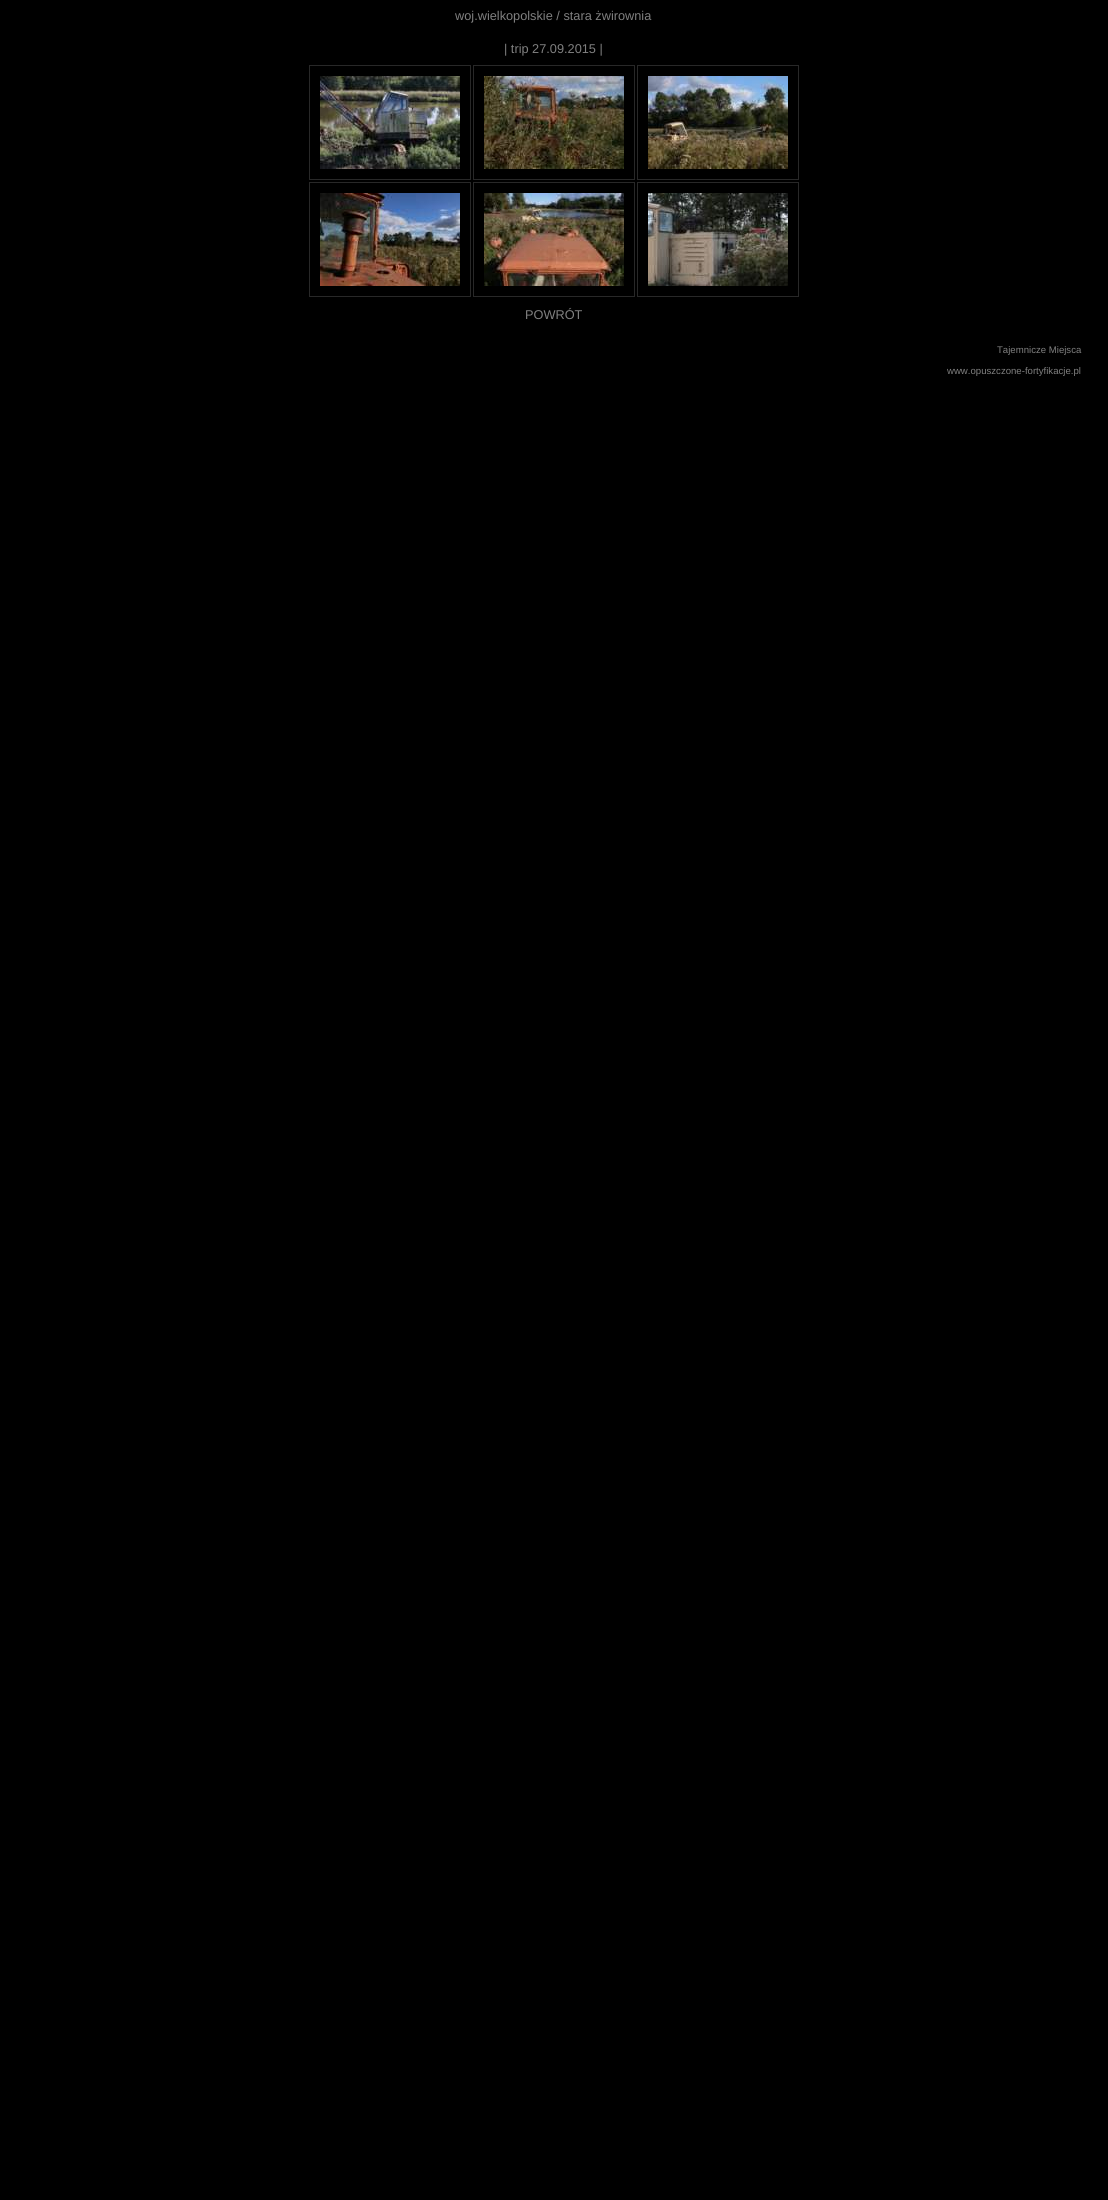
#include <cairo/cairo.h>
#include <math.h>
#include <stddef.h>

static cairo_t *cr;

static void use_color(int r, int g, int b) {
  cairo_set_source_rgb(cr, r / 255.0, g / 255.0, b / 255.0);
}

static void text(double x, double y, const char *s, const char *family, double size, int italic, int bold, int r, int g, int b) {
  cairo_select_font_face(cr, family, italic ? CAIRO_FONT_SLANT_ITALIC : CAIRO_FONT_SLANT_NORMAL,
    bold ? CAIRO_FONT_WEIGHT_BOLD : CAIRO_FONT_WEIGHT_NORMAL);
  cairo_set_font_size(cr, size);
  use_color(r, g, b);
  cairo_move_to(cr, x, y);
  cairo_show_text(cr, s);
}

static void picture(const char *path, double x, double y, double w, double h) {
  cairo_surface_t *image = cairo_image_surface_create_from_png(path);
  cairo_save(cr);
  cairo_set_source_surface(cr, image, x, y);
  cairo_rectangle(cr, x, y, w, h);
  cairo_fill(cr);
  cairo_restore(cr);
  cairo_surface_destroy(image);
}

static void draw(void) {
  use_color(0, 0, 0);
  cairo_paint(cr);
  cairo_rectangle(cr, 309.5, 65.5, 161, 114);
  use_color(40, 40, 40);
  cairo_set_line_width(cr, 1);
  cairo_stroke(cr);
  picture("img_01.png", 320, 76, 140, 93);
  cairo_rectangle(cr, 473.5, 65.5, 161, 114);
  cairo_stroke(cr);
  picture("img_02.png", 484, 76, 140, 93);
  cairo_rectangle(cr, 637.5, 65.5, 161, 114);
  cairo_stroke(cr);
  picture("img_03.png", 648, 76, 140, 93);
  cairo_rectangle(cr, 309.5, 182.5, 161, 114);
  cairo_stroke(cr);
  picture("img_04.png", 320, 193, 140, 93);
  cairo_rectangle(cr, 473.5, 182.5, 161, 114);
  cairo_stroke(cr);
  picture("img_05.png", 484, 193, 140, 93);
  cairo_rectangle(cr, 637.5, 182.5, 161, 114);
  cairo_stroke(cr);
  picture("img_06.png", 648, 193, 140, 93);
  text(455, 20, "woj.wielkopolskie / stara żwirownia", "Liberation Sans", 12.75, 0, 0, 128, 128, 128);
  text(504, 53, "| trip 27.09.2015 |", "Liberation Sans", 12.75, 0, 0, 128, 128, 128);
  text(525, 319, "POWRÓT", "Liberation Sans", 12.75, 0, 0, 128, 128, 128);
  text(997, 353, "Tajemnicze Miejsca", "Liberation Sans", 9.6, 0, 0, 128, 128, 128);
  text(947, 374, "www.opuszczone-fortyfikacje.pl", "Liberation Sans", 9.6, 0, 0, 128, 128, 128);
}

int main(void) {
  cairo_surface_t *surface = cairo_image_surface_create(CAIRO_FORMAT_RGB24, 1108, 2200);
  cr = cairo_create(surface);
  cairo_font_options_t *options = cairo_font_options_create();
  cairo_font_options_set_hint_metrics(options, CAIRO_HINT_METRICS_OFF);
  cairo_font_options_set_hint_style(options, CAIRO_HINT_STYLE_NONE);
  cairo_set_font_options(cr, options);
  cairo_set_miter_limit(cr, 4);
  draw();
  cairo_surface_write_to_png(surface, "out.png");
  cairo_font_options_destroy(options);
  cairo_destroy(cr);
  cairo_surface_destroy(surface);
  return 0;
}
